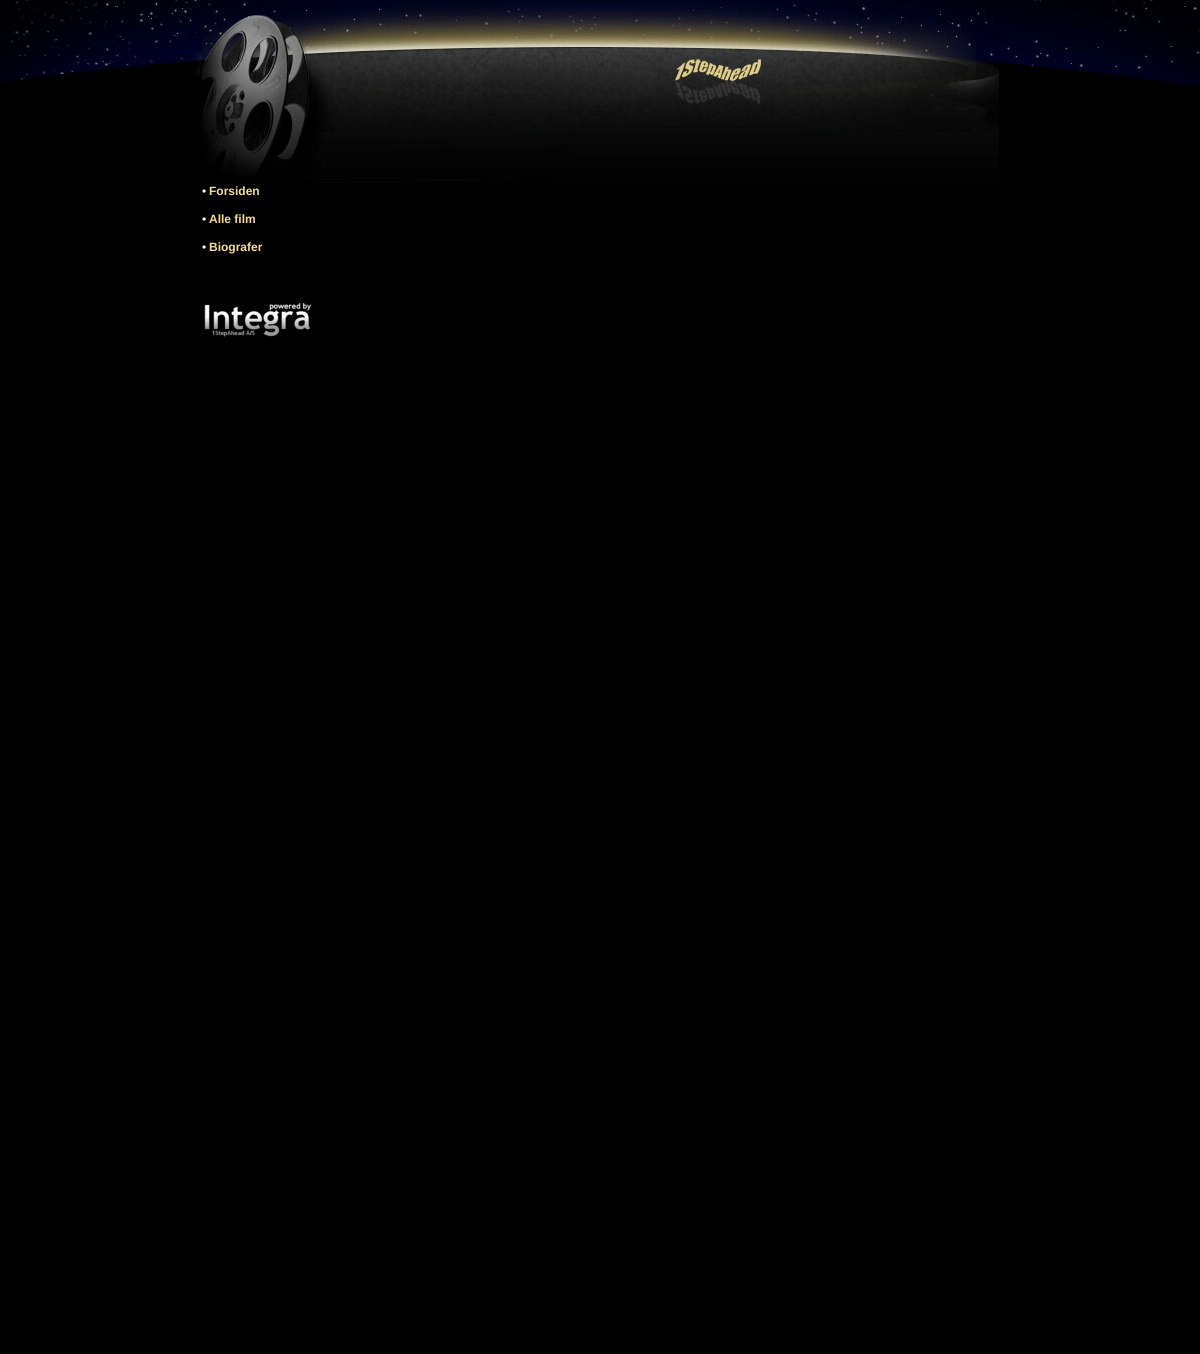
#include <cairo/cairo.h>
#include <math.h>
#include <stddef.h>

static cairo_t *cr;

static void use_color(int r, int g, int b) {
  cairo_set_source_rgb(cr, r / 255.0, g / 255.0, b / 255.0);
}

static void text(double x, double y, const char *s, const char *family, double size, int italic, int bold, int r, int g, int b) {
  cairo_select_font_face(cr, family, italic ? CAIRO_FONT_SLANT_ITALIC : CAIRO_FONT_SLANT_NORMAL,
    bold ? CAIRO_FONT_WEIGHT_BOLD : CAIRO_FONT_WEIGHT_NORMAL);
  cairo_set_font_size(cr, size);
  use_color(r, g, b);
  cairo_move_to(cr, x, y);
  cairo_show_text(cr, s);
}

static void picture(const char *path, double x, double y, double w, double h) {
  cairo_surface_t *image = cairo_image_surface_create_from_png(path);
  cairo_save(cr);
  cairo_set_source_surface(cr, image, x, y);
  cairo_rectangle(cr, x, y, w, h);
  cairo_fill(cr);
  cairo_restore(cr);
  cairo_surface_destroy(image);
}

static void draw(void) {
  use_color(0, 0, 0);
  cairo_paint(cr);
  picture("img_01.png", 0, 0, 202, 83);
  picture("img_02.png", 999, 0, 201, 88);
  picture("img_03.png", 202, 0, 797, 183);
  picture("img_04.png", 204, 302, 108, 35);
  text(202, 195, "•", "Liberation Sans", 12, 0, 0, 255, 255, 255);
  text(209, 195, "Forsiden", "Liberation Sans", 12, 0, 1, 244, 221, 142);
  text(202, 223, "•", "Liberation Sans", 12, 0, 0, 255, 255, 255);
  text(209, 223, "Alle film", "Liberation Sans", 12, 0, 1, 244, 221, 142);
  text(202, 251, "•", "Liberation Sans", 12, 0, 0, 255, 255, 255);
  text(209, 251, "Biografer", "Liberation Sans", 12, 0, 1, 244, 221, 142);
}

int main(void) {
  cairo_surface_t *surface = cairo_image_surface_create(CAIRO_FORMAT_RGB24, 1200, 1354);
  cr = cairo_create(surface);
  cairo_font_options_t *options = cairo_font_options_create();
  cairo_font_options_set_hint_metrics(options, CAIRO_HINT_METRICS_OFF);
  cairo_font_options_set_hint_style(options, CAIRO_HINT_STYLE_NONE);
  cairo_set_font_options(cr, options);
  cairo_set_miter_limit(cr, 4);
  draw();
  cairo_surface_write_to_png(surface, "out.png");
  cairo_font_options_destroy(options);
  cairo_destroy(cr);
  cairo_surface_destroy(surface);
  return 0;
}
